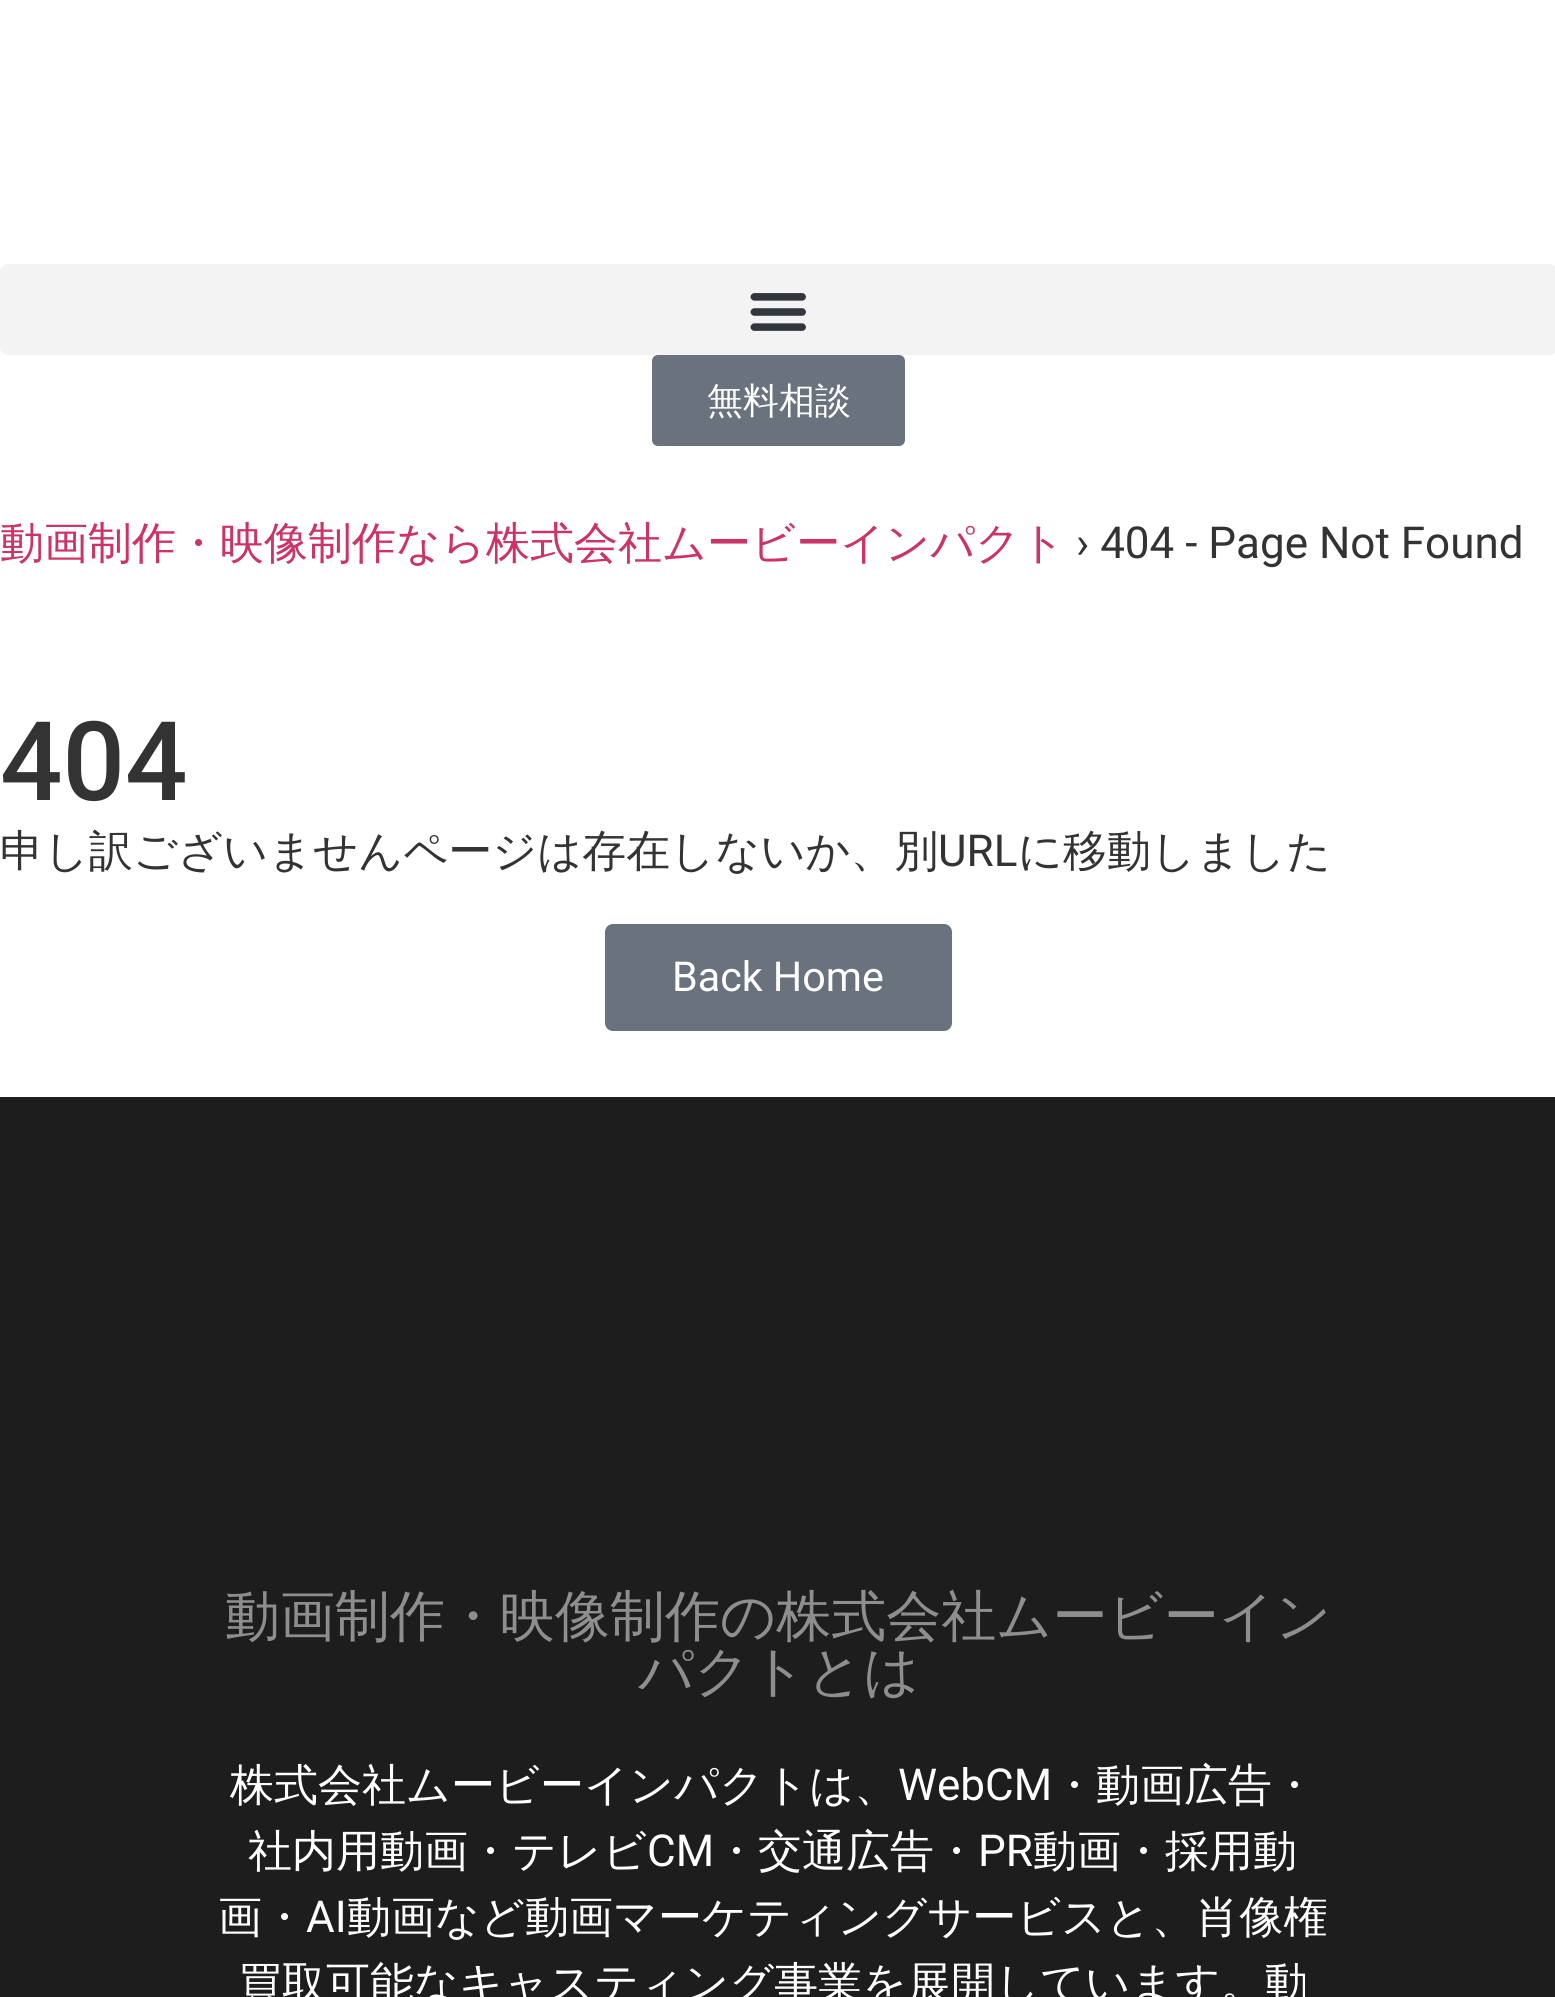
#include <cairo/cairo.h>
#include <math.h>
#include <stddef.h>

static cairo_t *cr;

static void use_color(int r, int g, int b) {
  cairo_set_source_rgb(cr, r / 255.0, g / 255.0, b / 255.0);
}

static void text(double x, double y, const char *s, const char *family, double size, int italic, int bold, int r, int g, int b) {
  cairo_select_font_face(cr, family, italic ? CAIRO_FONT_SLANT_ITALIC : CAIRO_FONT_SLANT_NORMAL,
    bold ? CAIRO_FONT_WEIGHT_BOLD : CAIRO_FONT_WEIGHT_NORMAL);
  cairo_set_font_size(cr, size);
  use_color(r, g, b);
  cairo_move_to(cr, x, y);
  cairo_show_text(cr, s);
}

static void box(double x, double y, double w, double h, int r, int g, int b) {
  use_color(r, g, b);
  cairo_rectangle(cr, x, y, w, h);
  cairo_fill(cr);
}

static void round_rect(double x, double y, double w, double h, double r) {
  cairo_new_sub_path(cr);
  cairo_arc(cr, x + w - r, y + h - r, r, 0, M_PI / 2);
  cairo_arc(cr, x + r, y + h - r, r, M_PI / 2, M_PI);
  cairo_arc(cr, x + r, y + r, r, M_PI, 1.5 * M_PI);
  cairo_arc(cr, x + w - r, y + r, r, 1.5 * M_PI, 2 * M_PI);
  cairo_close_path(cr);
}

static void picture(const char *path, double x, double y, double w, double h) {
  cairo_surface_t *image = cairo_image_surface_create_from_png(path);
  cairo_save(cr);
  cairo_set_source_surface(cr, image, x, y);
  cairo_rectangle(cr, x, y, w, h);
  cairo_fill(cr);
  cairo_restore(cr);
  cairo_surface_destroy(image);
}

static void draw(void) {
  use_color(255, 255, 255);
  cairo_paint(cr);
  use_color(243, 243, 243);
  round_rect(0, 264, 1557, 91, 8);
  cairo_fill(cr);
  picture("img_01.png", 750, 293, 56, 38);
  use_color(105, 114, 125);
  round_rect(652, 355, 253, 91, 6);
  cairo_fill(cr);
  round_rect(605, 924, 347, 107, 8);
  cairo_fill(cr);
  box(0, 1097, 1555, 900, 29, 29, 29);
  text(707, 413, "無料相談", "WenQuanYi Zen Hei Medium", 36, 0, 0, 255, 255, 255);
  text(0, 558, "動画制作・映像制作なら株式会社ムービーインパクト", "WenQuanYi Zen Hei Medium", 44, 0, 0, 204, 51, 102);
  text(1076, 558, "› 404 - Page Not Found", "Roboto", 44, 0, 0, 51, 51, 51);
  text(0, 800, "404", "Roboto Medium", 110, 0, 0, 51, 51, 51);
  text(0, 866, "申し訳ございませんページは存在しないか、別", "WenQuanYi Zen Hei Medium", 44, 0, 0, 51, 51, 51);
  text(938, 866, "URL", "Roboto", 44, 0, 0, 51, 51, 51);
  text(1018, 866, "に移動しました", "WenQuanYi Zen Hei Medium", 44, 0, 0, 51, 51, 51);
  text(672, 991, "Back Home", "Roboto", 41.25, 0, 0, 255, 255, 255);
  text(225, 1635, "動画制作・映像制作の株式会社ムービーイン", "WenQuanYi Zen Hei Medium", 55, 0, 0, 142, 142, 142);
  text(638, 1690, "パクトとは", "WenQuanYi Zen Hei Medium", 55, 0, 0, 142, 142, 142);
  text(230, 1800, "株式会社ムービーインパクトは、", "WenQuanYi Zen Hei Medium", 44, 0, 0, 255, 255, 255);
  text(898, 1800, "WebCM", "Roboto", 44, 0, 0, 255, 255, 255);
  text(1052, 1800, "・動画広告・", "WenQuanYi Zen Hei Medium", 44, 0, 0, 255, 255, 255);
  text(248, 1866, "社内用動画・テレビ", "WenQuanYi Zen Hei Medium", 44, 0, 0, 255, 255, 255);
  text(647, 1866, "CM", "Roboto", 44, 0, 0, 255, 255, 255);
  text(714, 1866, "・交通広告・", "WenQuanYi Zen Hei Medium", 44, 0, 0, 255, 255, 255);
  text(978, 1866, "PR", "Roboto", 44, 0, 0, 255, 255, 255);
  text(1033, 1866, "動画・採用動", "WenQuanYi Zen Hei Medium", 44, 0, 0, 255, 255, 255);
  text(218, 1932, "画・", "WenQuanYi Zen Hei Medium", 44, 0, 0, 255, 255, 255);
  text(306, 1932, "AI", "Roboto", 44, 0, 0, 255, 255, 255);
  text(347, 1932, "動画など動画マーケティングサービスと、肖像権", "WenQuanYi Zen Hei Medium", 44, 0, 0, 255, 255, 255);
  text(238, 1998, "買取可能なキャスティング事業を展開しています。動", "WenQuanYi Zen Hei Medium", 44, 0, 0, 255, 255, 255);
}

int main(void) {
  cairo_surface_t *surface = cairo_image_surface_create(CAIRO_FORMAT_RGB24, 1555, 1997);
  cr = cairo_create(surface);
  cairo_font_options_t *options = cairo_font_options_create();
  cairo_font_options_set_hint_metrics(options, CAIRO_HINT_METRICS_OFF);
  cairo_font_options_set_hint_style(options, CAIRO_HINT_STYLE_NONE);
  cairo_set_font_options(cr, options);
  cairo_set_miter_limit(cr, 4);
  draw();
  cairo_surface_write_to_png(surface, "out.png");
  cairo_font_options_destroy(options);
  cairo_destroy(cr);
  cairo_surface_destroy(surface);
  return 0;
}
